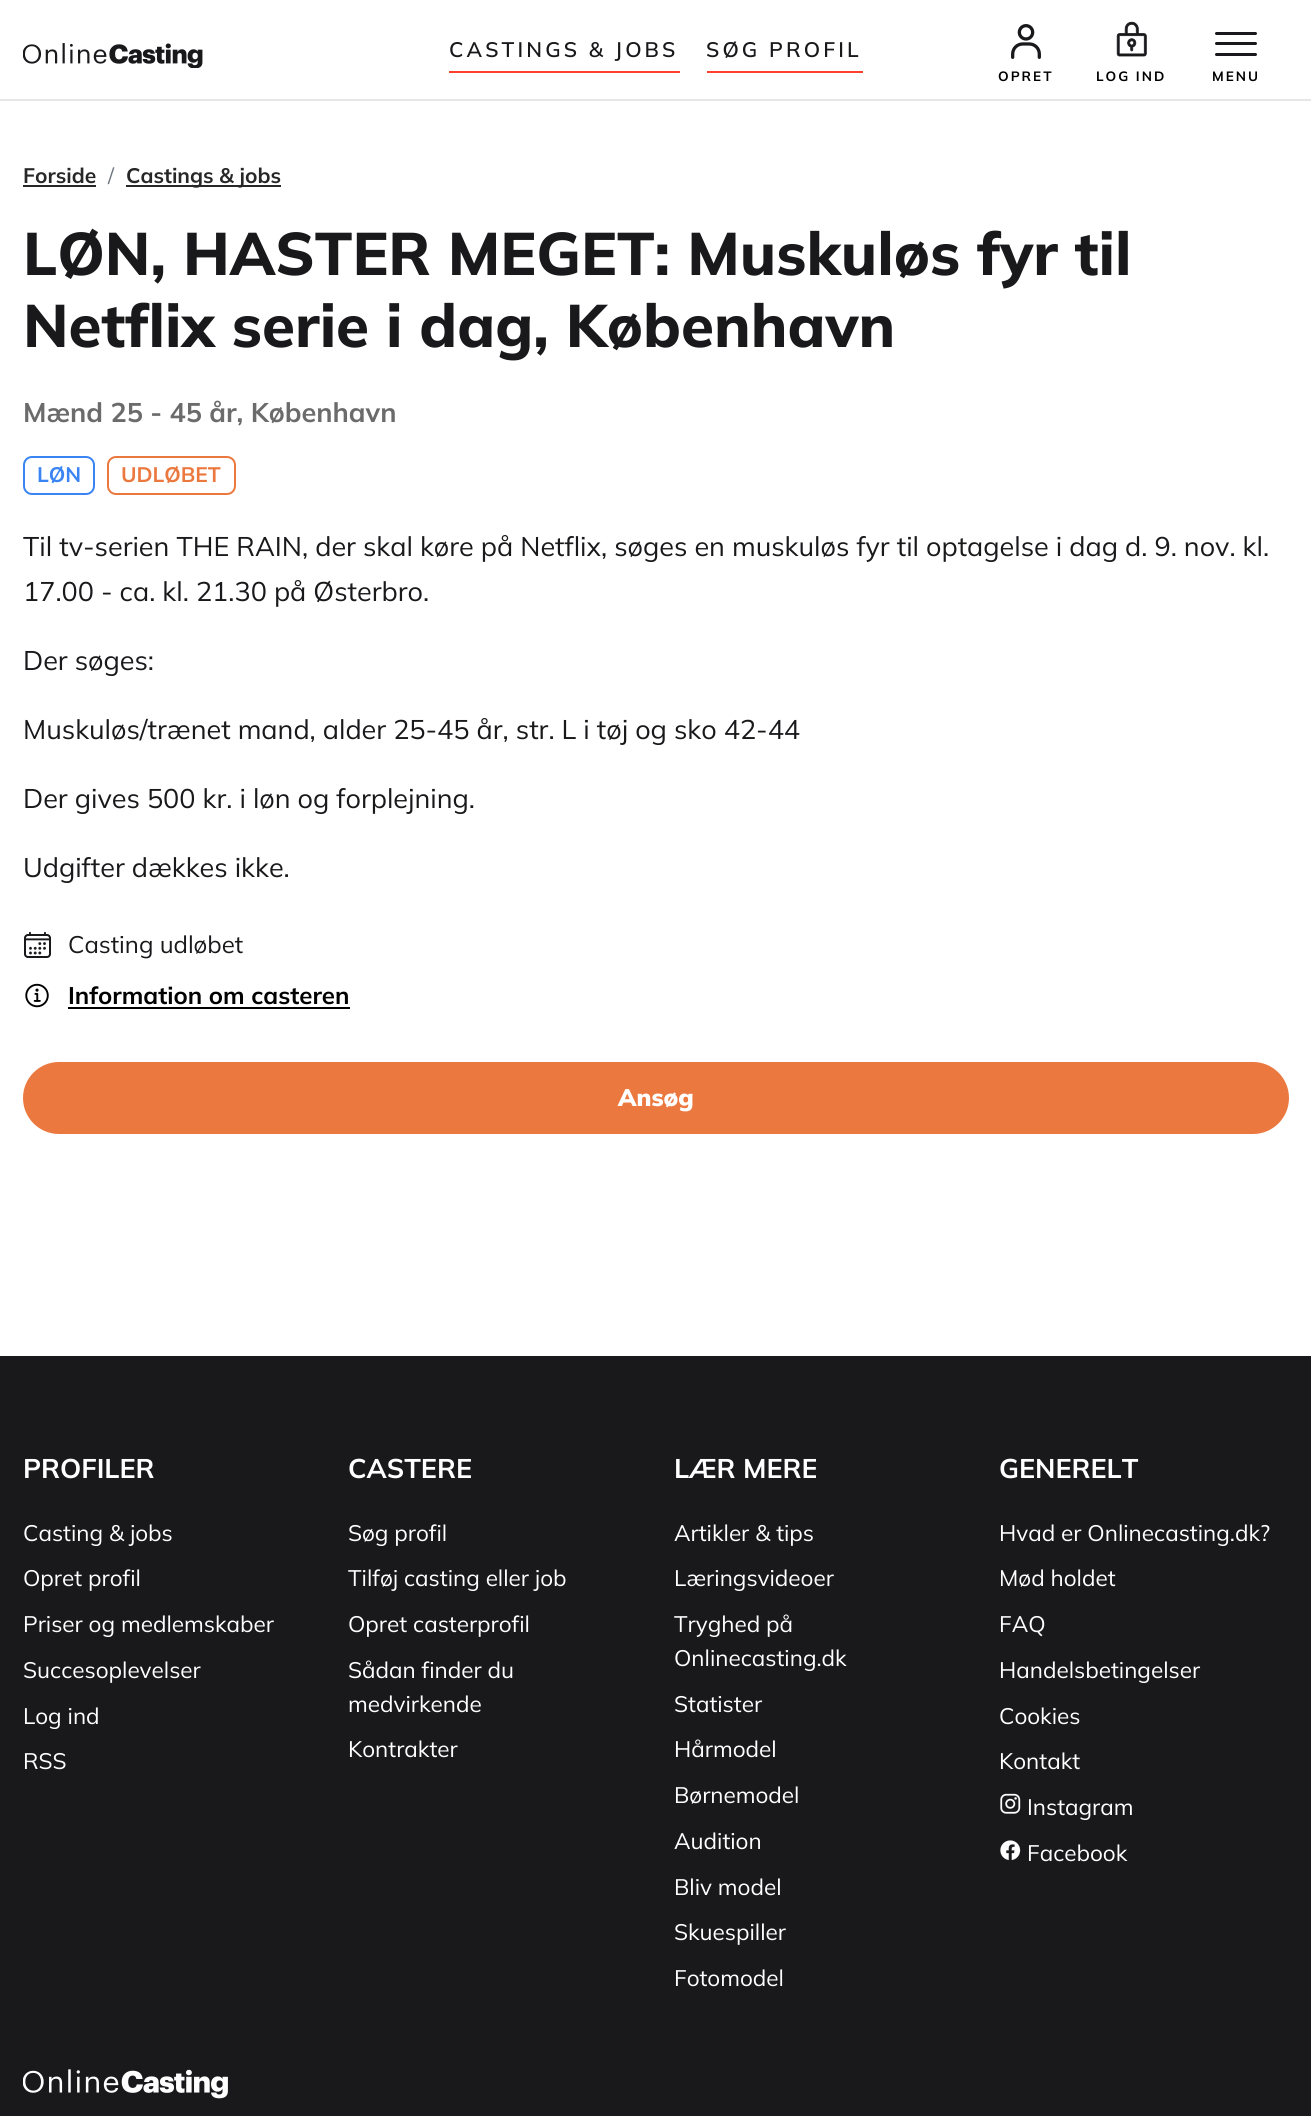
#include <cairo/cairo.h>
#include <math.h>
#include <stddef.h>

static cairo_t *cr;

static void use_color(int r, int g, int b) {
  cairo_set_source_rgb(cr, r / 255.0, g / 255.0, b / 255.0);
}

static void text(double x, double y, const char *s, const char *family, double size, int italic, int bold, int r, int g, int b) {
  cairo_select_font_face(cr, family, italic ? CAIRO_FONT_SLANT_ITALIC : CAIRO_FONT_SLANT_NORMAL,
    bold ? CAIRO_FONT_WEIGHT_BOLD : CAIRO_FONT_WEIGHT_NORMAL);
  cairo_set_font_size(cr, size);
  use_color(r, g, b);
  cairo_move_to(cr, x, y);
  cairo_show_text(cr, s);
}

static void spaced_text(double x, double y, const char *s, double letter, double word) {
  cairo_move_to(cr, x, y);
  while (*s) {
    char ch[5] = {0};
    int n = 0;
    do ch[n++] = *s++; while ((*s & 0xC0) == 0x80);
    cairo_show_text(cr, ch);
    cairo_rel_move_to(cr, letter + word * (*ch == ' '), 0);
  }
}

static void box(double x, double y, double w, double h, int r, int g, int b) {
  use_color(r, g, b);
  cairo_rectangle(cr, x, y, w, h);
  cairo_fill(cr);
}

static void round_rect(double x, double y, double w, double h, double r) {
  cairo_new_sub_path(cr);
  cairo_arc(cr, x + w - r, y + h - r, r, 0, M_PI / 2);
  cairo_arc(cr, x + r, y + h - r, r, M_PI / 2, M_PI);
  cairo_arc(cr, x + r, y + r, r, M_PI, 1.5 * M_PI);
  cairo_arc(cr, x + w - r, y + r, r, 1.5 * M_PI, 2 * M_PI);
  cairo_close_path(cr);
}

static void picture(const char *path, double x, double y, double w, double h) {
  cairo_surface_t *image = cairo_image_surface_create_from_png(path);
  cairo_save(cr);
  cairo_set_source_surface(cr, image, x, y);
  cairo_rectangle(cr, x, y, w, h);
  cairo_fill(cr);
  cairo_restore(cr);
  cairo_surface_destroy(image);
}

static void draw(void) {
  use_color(255, 255, 255);
  cairo_paint(cr);
  box(0, 99, 1311, 2, 230, 230, 230);
  picture("img_01.png", 23, 43, 180, 25);
  box(449, 71, 231, 2, 255, 66, 46);
  box(707, 71, 156, 2, 255, 66, 46);
  picture("img_02.png", 1011, 24, 30, 35);
  picture("img_03.png", 1116, 21, 31, 36);
  use_color(25, 25, 28);
  round_rect(1215, 32, 42, 3, 1.5);
  cairo_fill(cr);
  round_rect(1215, 42, 42, 3, 1.5);
  cairo_fill(cr);
  round_rect(1215, 53, 42, 3, 1.5);
  cairo_fill(cr);
  box(23, 185, 73, 2, 39, 39, 39);
  box(126, 185, 155, 2, 39, 39, 39);
  round_rect(24, 457, 70, 37, 8);
  use_color(58, 132, 244);
  cairo_stroke(cr);
  round_rect(108, 457, 127, 37, 8);
  use_color(235, 120, 62);
  cairo_stroke(cr);
  picture("img_04.png", 24, 931, 27, 27);
  picture("img_05.png", 25, 983, 24, 25);
  box(68, 1007, 282, 2, 0, 0, 0);
  use_color(235, 120, 62);
  round_rect(24.5, 1063.5, 1263, 69, 34.5);
  cairo_fill_preserve(cr);
  cairo_set_line_width(cr, 3);
  cairo_stroke(cr);
  box(0, 1356, 1311, 760, 25, 25, 28);
  picture("img_06.png", 1000, 1793, 21, 21);
  picture("img_07.png", 1000, 1840, 21, 20);
  picture("img_08.png", 23, 2069, 205, 30);
  cairo_select_font_face(cr, "Mulish SemiBold", CAIRO_FONT_SLANT_NORMAL, CAIRO_FONT_WEIGHT_NORMAL);
  cairo_set_font_size(cr, 21);
  spaced_text(449, 57, "CASTINGS & JOBS", 3.1, 0);
  spaced_text(706, 57, "SØG PROFIL", 3.1, 0);
  cairo_select_font_face(cr, "Mulish", CAIRO_FONT_SLANT_NORMAL, CAIRO_FONT_WEIGHT_BOLD);
  cairo_set_font_size(cr, 13.5);
  use_color(0, 0, 0);
  spaced_text(998, 81, "OPRET", 2, 0);
  spaced_text(1096, 81, "LOG IND", 2, 0);
  spaced_text(1212, 81, "MENU", 2, 0);
  text(23, 183, "Forside", "Mulish", 21, 0, 1, 39, 39, 39);
  text(108, 183, "/", "Mulish", 21, 0, 0, 108, 117, 125);
  text(126, 183, "Castings & jobs", "Mulish", 21, 0, 1, 39, 39, 39);
  text(23, 275, "LØN, HASTER MEGET: Muskuløs fyr til", "Mulish ExtraBold", 60, 0, 0, 25, 25, 28);
  text(23, 347, "Netflix serie i dag, København", "Mulish ExtraBold", 60, 0, 0, 25, 25, 28);
  text(23, 422, "Mænd 25 - 45 år, København", "Mulish", 27, 0, 1, 107, 107, 107);
  text(37, 482, "LØN", "Mulish", 21, 0, 1, 58, 132, 244);
  text(121, 482, "UDLØBET", "Mulish", 21, 0, 1, 235, 120, 62);
  text(23, 556, "Til tv-serien THE RAIN, der skal køre på Netflix, søges en muskuløs fyr til optagelse i dag d. 9. nov. kl.", "Mulish", 27, 0, 0, 25, 25, 28);
  text(23, 601, "17.00 - ca. kl. 21.30 på Østerbro.", "Mulish", 27, 0, 0, 25, 25, 28);
  text(23, 670, "Der søges:", "Mulish", 27, 0, 0, 25, 25, 28);
  text(23, 739, "Muskuløs/trænet mand, alder 25-45 år, str. L i tøj og sko 42-44", "Mulish", 27, 0, 0, 25, 25, 28);
  text(23, 808, "Der gives 500 kr. i løn og forplejning.", "Mulish", 27, 0, 0, 25, 25, 28);
  text(23, 877, "Udgifter dækkes ikke.", "Mulish", 27, 0, 0, 25, 25, 28);
  text(68, 953, "Casting udløbet", "Mulish", 24, 0, 0, 25, 25, 28);
  text(68, 1004, "Information om casteren", "Mulish", 24, 0, 1, 0, 0, 0);
  text(618, 1106, "Ansøg", "Mulish Black", 24, 0, 0, 255, 255, 255);
  text(23, 1478, "PROFILER", "Mulish", 27, 0, 1, 255, 255, 255);
  text(23, 1541, "Casting & jobs", "Mulish", 22.5, 0, 0, 255, 255, 255);
  text(23, 1586, "Opret profil", "Mulish", 22.5, 0, 0, 255, 255, 255);
  text(23, 1632, "Priser og medlemskaber", "Mulish", 22.5, 0, 0, 255, 255, 255);
  text(23, 1678, "Succesoplevelser", "Mulish", 22.5, 0, 0, 255, 255, 255);
  text(23, 1724, "Log ind", "Mulish", 22.5, 0, 0, 255, 255, 255);
  text(23, 1769, "RSS", "Mulish", 22.5, 0, 0, 255, 255, 255);
  text(348, 1478, "CASTERE", "Mulish", 27, 0, 1, 255, 255, 255);
  text(348, 1541, "Søg profil", "Mulish", 22.5, 0, 0, 255, 255, 255);
  text(348, 1586, "Tilføj casting eller job", "Mulish", 22.5, 0, 0, 255, 255, 255);
  text(348, 1632, "Opret casterprofil", "Mulish", 22.5, 0, 0, 255, 255, 255);
  text(348, 1678, "Sådan finder du", "Mulish", 22.5, 0, 0, 255, 255, 255);
  text(348, 1712, "medvirkende", "Mulish", 22.5, 0, 0, 255, 255, 255);
  text(348, 1757, "Kontrakter", "Mulish", 22.5, 0, 0, 255, 255, 255);
  text(674, 1478, "LÆR MERE", "Mulish", 27, 0, 1, 255, 255, 255);
  text(674, 1541, "Artikler & tips", "Mulish", 22.5, 0, 0, 255, 255, 255);
  text(674, 1586, "Læringsvideoer", "Mulish", 22.5, 0, 0, 255, 255, 255);
  text(674, 1632, "Tryghed på", "Mulish", 22.5, 0, 0, 255, 255, 255);
  text(674, 1666, "Onlinecasting.dk", "Mulish", 22.5, 0, 0, 255, 255, 255);
  text(674, 1712, "Statister", "Mulish", 22.5, 0, 0, 255, 255, 255);
  text(674, 1757, "Hårmodel", "Mulish", 22.5, 0, 0, 255, 255, 255);
  text(674, 1803, "Børnemodel", "Mulish", 22.5, 0, 0, 255, 255, 255);
  text(674, 1849, "Audition", "Mulish", 22.5, 0, 0, 255, 255, 255);
  text(674, 1895, "Bliv model", "Mulish", 22.5, 0, 0, 255, 255, 255);
  text(674, 1940, "Skuespiller", "Mulish", 22.5, 0, 0, 255, 255, 255);
  text(674, 1986, "Fotomodel", "Mulish", 22.5, 0, 0, 255, 255, 255);
  text(999, 1478, "GENERELT", "Mulish", 27, 0, 1, 255, 255, 255);
  text(999, 1541, "Hvad er Onlinecasting.dk?", "Mulish", 22.5, 0, 0, 255, 255, 255);
  text(999, 1586, "Mød holdet", "Mulish", 22.5, 0, 0, 255, 255, 255);
  text(999, 1632, "FAQ", "Mulish", 22.5, 0, 0, 255, 255, 255);
  text(999, 1678, "Handelsbetingelser", "Mulish", 22.5, 0, 0, 255, 255, 255);
  text(999, 1724, "Cookies", "Mulish", 22.5, 0, 0, 255, 255, 255);
  text(999, 1769, "Kontakt", "Mulish", 22.5, 0, 0, 255, 255, 255);
  text(1027, 1815, "Instagram", "Mulish", 22.5, 0, 0, 255, 255, 255);
  text(1027, 1861, "Facebook", "Mulish", 22.5, 0, 0, 255, 255, 255);
}

int main(void) {
  cairo_surface_t *surface = cairo_image_surface_create(CAIRO_FORMAT_RGB24, 1311, 2116);
  cr = cairo_create(surface);
  cairo_font_options_t *options = cairo_font_options_create();
  cairo_font_options_set_hint_metrics(options, CAIRO_HINT_METRICS_OFF);
  cairo_font_options_set_hint_style(options, CAIRO_HINT_STYLE_NONE);
  cairo_set_font_options(cr, options);
  cairo_set_miter_limit(cr, 4);
  draw();
  cairo_surface_write_to_png(surface, "out.png");
  cairo_font_options_destroy(options);
  cairo_destroy(cr);
  cairo_surface_destroy(surface);
  return 0;
}
